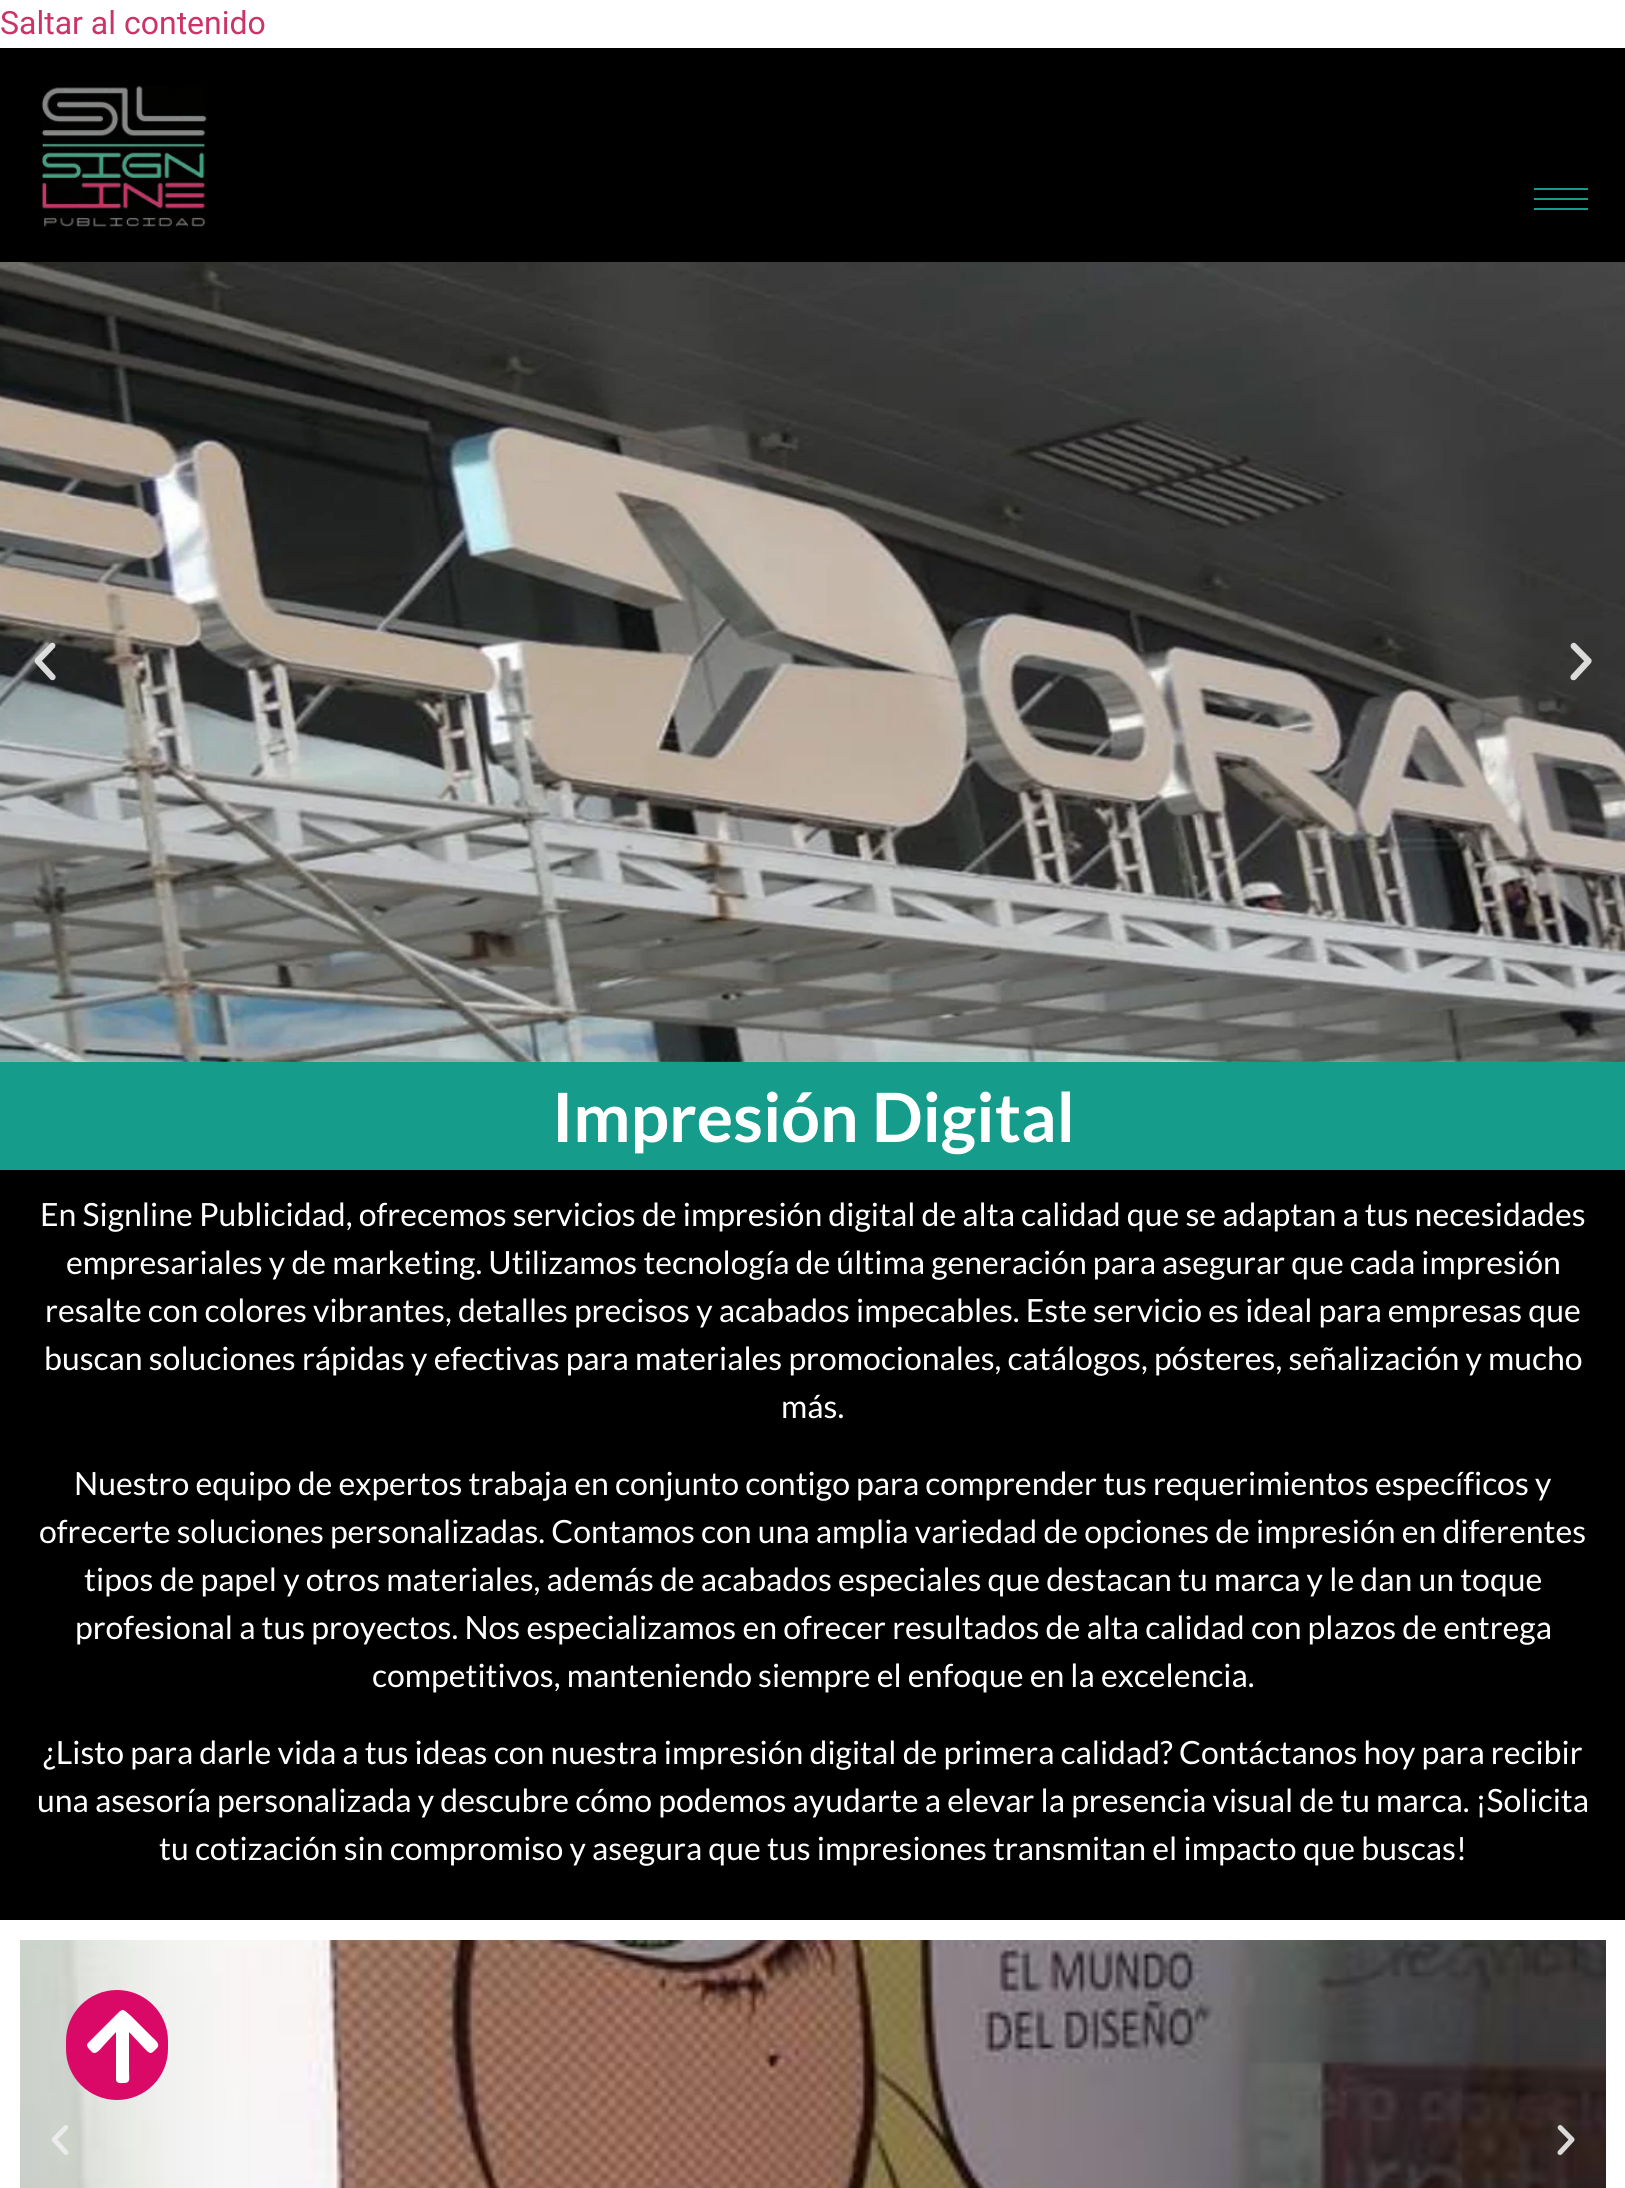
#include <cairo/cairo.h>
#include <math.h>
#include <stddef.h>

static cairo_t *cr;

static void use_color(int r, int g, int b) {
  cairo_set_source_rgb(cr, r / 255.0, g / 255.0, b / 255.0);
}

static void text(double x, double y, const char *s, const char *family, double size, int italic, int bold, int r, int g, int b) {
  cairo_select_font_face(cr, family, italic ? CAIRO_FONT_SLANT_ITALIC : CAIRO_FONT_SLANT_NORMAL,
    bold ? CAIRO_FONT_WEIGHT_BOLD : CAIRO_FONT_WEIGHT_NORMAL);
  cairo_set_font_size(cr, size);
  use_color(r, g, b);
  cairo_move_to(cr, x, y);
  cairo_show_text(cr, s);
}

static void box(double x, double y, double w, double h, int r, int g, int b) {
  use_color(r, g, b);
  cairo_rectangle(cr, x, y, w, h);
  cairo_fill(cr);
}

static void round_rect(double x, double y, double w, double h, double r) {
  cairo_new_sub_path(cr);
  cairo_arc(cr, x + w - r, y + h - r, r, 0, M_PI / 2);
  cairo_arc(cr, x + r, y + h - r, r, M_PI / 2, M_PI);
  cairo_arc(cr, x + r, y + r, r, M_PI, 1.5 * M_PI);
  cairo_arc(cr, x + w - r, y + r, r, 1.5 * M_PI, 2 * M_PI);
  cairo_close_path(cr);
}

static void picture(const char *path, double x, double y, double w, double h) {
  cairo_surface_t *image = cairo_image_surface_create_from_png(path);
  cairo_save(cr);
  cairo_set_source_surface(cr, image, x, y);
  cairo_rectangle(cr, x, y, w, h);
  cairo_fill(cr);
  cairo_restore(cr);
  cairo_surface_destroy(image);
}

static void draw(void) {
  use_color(255, 255, 255);
  cairo_paint(cr);
  box(0, 48, 1625, 214, 0, 0, 0);
  picture("img_01.png", 41, 86, 166, 141);
  box(1534, 188, 54, 2, 21, 156, 138);
  box(1534, 198, 54, 2, 21, 156, 138);
  box(1534, 208, 54, 2, 21, 156, 138);
  picture("img_02.png", 0, 262, 1625, 800);
  picture("img_03.png", 34, 642, 22, 39);
  picture("img_04.png", 1570, 642, 22, 39);
  box(0, 1062, 1625, 108, 21, 156, 138);
  box(0, 1170, 1625, 750, 0, 0, 0);
  picture("img_05.png", 20, 1940, 1586, 248);
  picture("img_06.png", 51, 2125, 18, 30);
  picture("img_07.png", 1557, 2125, 18, 30);
  use_color(218, 9, 103);
  round_rect(66, 1990, 102, 110, 51);
  cairo_fill(cr);
  use_color(255, 255, 255);
  cairo_new_path(cr);
  cairo_move_to(cr, 92, 2052);
  cairo_curve_to(cr, 90, 2050, 85, 2046, 88, 2043);
  cairo_line_to(cr, 115, 2016);
  cairo_curve_to(cr, 123, 2008, 122, 2008, 131, 2016);
  cairo_line_to(cr, 152, 2037);
  cairo_curve_to(cr, 154, 2039, 161, 2044, 157, 2048);
  cairo_curve_to(cr, 151, 2054, 151, 2055, 145, 2049);
  cairo_line_to(cr, 129, 2032);
  cairo_line_to(cr, 129, 2071);
  cairo_curve_to(cr, 129, 2078, 131, 2083, 124, 2083);
  cairo_curve_to(cr, 121, 2083, 116, 2084, 116, 2079);
  cairo_line_to(cr, 116, 2032);
  cairo_line_to(cr, 104, 2045);
  cairo_curve_to(cr, 102, 2047, 96, 2056, 92, 2052);
  cairo_close_path(cr);
  cairo_fill(cr);
  text(0, 34, "Saltar al contenido", "Roboto", 32, 0, 0, 204, 51, 102);
  text(552, 1142, "Impresión Digital", "Lato", 68, 0, 1, 255, 255, 255);
  text(40, 1226, "En Signline Publicidad, ofrecemos servicios de impresión digital de alta calidad que se adaptan a tus necesidades", "Lato", 32, 0, 0, 255, 255, 255);
  text(66, 1274, "empresariales y de marketing. Utilizamos tecnología de última generación para asegurar que cada impresión", "Lato", 32, 0, 0, 255, 255, 255);
  text(45, 1322, "resalte con colores vibrantes, detalles precisos y acabados impecables. Este servicio es ideal para empresas que", "Lato", 32, 0, 0, 255, 255, 255);
  text(44, 1370, "buscan soluciones rápidas y efectivas para materiales promocionales, catálogos, pósteres, señalización y mucho", "Lato", 32, 0, 0, 255, 255, 255);
  text(781, 1418, "más.", "Lato", 32, 0, 0, 255, 255, 255);
  text(74, 1495, "Nuestro equipo de expertos trabaja en conjunto contigo para comprender tus requerimientos específicos y", "Lato", 32, 0, 0, 255, 255, 255);
  text(39, 1543, "ofrecerte soluciones personalizadas. Contamos con una amplia variedad de opciones de impresión en diferentes", "Lato", 32, 0, 0, 255, 255, 255);
  text(84, 1591, "tipos de papel y otros materiales, además de acabados especiales que destacan tu marca y le dan un toque", "Lato", 32, 0, 0, 255, 255, 255);
  text(75, 1639, "profesional a tus proyectos. Nos especializamos en ofrecer resultados de alta calidad con plazos de entrega", "Lato", 32, 0, 0, 255, 255, 255);
  text(372, 1687, "competitivos, manteniendo siempre el enfoque en la excelencia.", "Lato", 32, 0, 0, 255, 255, 255);
  text(43, 1764, "¿Listo para darle vida a tus ideas con nuestra impresión digital de primera calidad? Contáctanos hoy para recibir", "Lato", 32, 0, 0, 255, 255, 255);
  text(37, 1812, "una asesoría personalizada y descubre cómo podemos ayudarte a elevar la presencia visual de tu marca. ¡Solicita", "Lato", 32, 0, 0, 255, 255, 255);
  text(159, 1860, "tu cotización sin compromiso y asegura que tus impresiones transmitan el impacto que buscas!", "Lato", 32, 0, 0, 255, 255, 255);
}

int main(void) {
  cairo_surface_t *surface = cairo_image_surface_create(CAIRO_FORMAT_RGB24, 1625, 2188);
  cr = cairo_create(surface);
  cairo_font_options_t *options = cairo_font_options_create();
  cairo_font_options_set_hint_metrics(options, CAIRO_HINT_METRICS_OFF);
  cairo_font_options_set_hint_style(options, CAIRO_HINT_STYLE_NONE);
  cairo_set_font_options(cr, options);
  cairo_set_miter_limit(cr, 4);
  draw();
  cairo_surface_write_to_png(surface, "out.png");
  cairo_font_options_destroy(options);
  cairo_destroy(cr);
  cairo_surface_destroy(surface);
  return 0;
}
